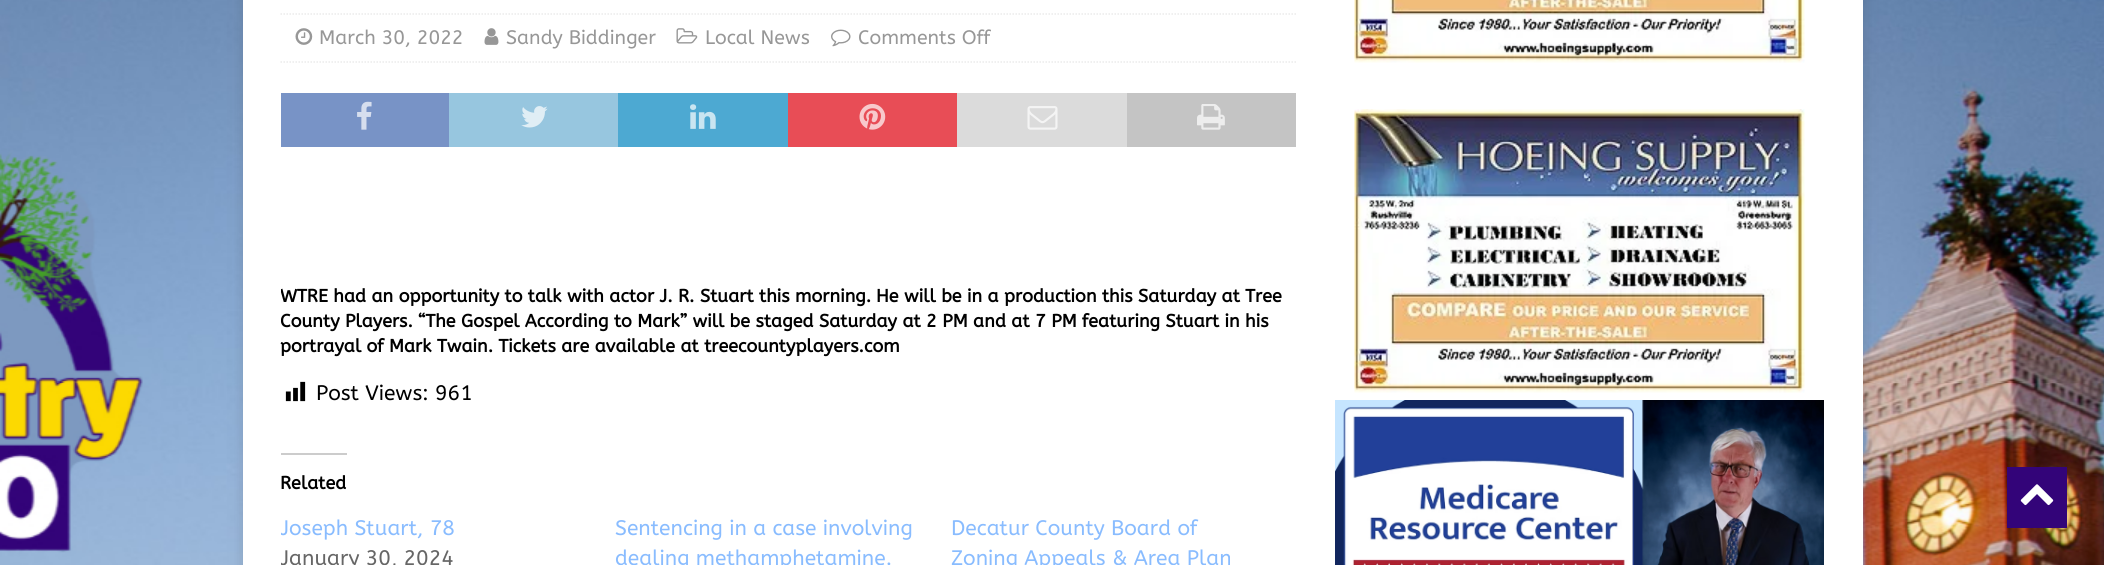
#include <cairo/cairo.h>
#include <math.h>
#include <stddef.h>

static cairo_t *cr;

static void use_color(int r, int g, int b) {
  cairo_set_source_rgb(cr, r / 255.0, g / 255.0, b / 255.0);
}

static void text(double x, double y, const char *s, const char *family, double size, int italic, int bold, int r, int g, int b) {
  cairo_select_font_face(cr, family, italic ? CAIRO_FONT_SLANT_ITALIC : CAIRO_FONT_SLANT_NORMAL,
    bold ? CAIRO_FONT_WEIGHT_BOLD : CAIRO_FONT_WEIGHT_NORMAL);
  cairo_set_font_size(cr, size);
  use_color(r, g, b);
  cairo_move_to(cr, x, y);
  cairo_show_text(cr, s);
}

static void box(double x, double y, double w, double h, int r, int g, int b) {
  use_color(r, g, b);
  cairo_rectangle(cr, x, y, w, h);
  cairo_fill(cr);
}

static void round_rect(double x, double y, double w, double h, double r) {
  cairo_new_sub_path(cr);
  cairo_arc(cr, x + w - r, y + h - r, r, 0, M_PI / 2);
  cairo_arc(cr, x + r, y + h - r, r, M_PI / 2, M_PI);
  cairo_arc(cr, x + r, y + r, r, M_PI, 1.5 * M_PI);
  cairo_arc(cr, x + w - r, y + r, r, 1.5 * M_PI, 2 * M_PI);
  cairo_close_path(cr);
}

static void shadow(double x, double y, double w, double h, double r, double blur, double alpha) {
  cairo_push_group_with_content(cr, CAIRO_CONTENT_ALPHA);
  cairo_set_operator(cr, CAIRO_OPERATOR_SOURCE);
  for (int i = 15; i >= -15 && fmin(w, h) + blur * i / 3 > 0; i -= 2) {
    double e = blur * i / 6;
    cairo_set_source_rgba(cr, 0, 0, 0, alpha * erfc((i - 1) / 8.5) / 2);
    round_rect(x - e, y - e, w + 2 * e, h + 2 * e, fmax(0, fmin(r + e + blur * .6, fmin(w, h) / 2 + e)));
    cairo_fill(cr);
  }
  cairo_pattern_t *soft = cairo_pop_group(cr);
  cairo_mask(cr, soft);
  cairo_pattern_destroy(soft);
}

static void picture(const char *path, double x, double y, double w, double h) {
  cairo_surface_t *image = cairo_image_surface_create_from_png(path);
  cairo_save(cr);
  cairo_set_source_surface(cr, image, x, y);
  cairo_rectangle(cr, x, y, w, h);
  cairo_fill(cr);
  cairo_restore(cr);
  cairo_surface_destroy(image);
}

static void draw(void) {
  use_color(255, 255, 255);
  cairo_paint(cr);
  picture("img_01.png", 0, 0, 2104, 565);
  use_color(50, 50, 50);
  shadow(243, -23, 1620, 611, 0, 7.5, 0.17);
  box(243, 0, 1620, 565, 255, 255, 255);
  cairo_new_path(cr);
  cairo_move_to(cr, 280.5, 14);
  cairo_line_to(cr, 1297.5, 14);
  use_color(235, 235, 235);
  cairo_set_line_width(cr, 1.5);
  cairo_set_dash(cr, (double[]){1.5, 1.5}, 2, 0);
  cairo_stroke(cr);
  cairo_new_path(cr);
  cairo_move_to(cr, 280.5, 62);
  cairo_line_to(cr, 1297.5, 62);
  cairo_stroke(cr);
  picture("img_02.png", 295, 28, 18, 17);
  picture("img_03.png", 484, 28, 15, 17);
  picture("img_04.png", 676, 28, 22, 16);
  picture("img_05.png", 831, 29, 20, 18);
  box(281, 93, 168, 54, 120, 147, 198);
  picture("img_06.png", 357, 101, 15, 29);
  box(449, 93, 169, 54, 151, 198, 223);
  picture("img_07.png", 521, 106, 27, 22);
  box(618, 93, 170, 54, 77, 169, 210);
  picture("img_08.png", 690, 104, 26, 25);
  box(788, 93, 169, 54, 232, 77, 86);
  picture("img_09.png", 859, 103, 27, 27);
  box(957, 93, 170, 54, 219, 219, 219);
  picture("img_10.png", 1027, 106, 31, 24);
  box(1127, 93, 169, 54, 196, 196, 196);
  picture("img_11.png", 1197, 104, 28, 26);
  picture("img_12.png", 285, 381, 21, 21);
  box(281, 453, 66, 2, 204, 204, 204);
  picture("img_13.png", 1354, 0, 451, 63);
  picture("img_14.png", 1354, 109, 451, 284);
  picture("img_15.png", 1335, 400, 489, 165);
  box(2007, 467, 60, 61, 51, 4, 121);
  picture("img_16.png", 2020, 484, 34, 22);
  text(319, 44, "March 30, 2022", "ABeeZee", 19.5, 0, 0, 151, 151, 151);
  text(506, 44, "Sandy Biddinger", "ABeeZee", 19.5, 0, 0, 151, 151, 151);
  text(705, 44, "Local News", "ABeeZee", 19.5, 0, 0, 151, 151, 151);
  text(858, 44, "Comments Off", "ABeeZee", 19.5, 0, 0, 151, 151, 151);
  cairo_save(cr);
  cairo_rectangle(cr, 281, 0, 1017, 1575);
  cairo_clip(cr);
  text(280, 302, "WTRE had an opportunity to talk with actor J. R. Stuart this morning.", "ABeeZee", 18, 0, 1, 0, 0, 0);
  cairo_restore(cr);
  text(876, 302, "He will be in a production this Saturday at Tree", "ABeeZee", 18, 0, 1, 0, 0, 0);
  cairo_save(cr);
  cairo_rectangle(cr, 281, 0, 1017, 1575);
  cairo_clip(cr);
  text(280, 327, "County Players.", "ABeeZee", 18, 0, 1, 0, 0, 0);
  cairo_restore(cr);
  text(418, 327, "“The Gospel According to Mark” will be staged Saturday at 2 PM and at 7 PM featuring Stuart in his", "ABeeZee", 18, 0, 1, 0, 0, 0);
  text(280, 352, "portrayal of Mark Twain. Tickets are available at treecountyplayers.com", "ABeeZee", 18, 0, 1, 0, 0, 0);
  text(316, 400, "Post Views: 961", "ABeeZee", 21, 0, 0, 0, 0, 0);
  text(280, 489, "Related", "ABeeZee", 18, 0, 1, 0, 0, 0);
  cairo_save(cr);
  cairo_rectangle(cr, 281, 515, 301, 30);
  cairo_clip(cr);
  text(280, 535, "Joseph Stuart, 78", "ABeeZee", 21, 0, 0, 137, 188, 255);
  cairo_restore(cr);
  cairo_save(cr);
  cairo_rectangle(cr, 281, 0, 1017, 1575);
  cairo_clip(cr);
  text(280, 565, "January 30, 2024", "ABeeZee", 21, 0, 0, 102, 102, 102);
  cairo_restore(cr);
  text(615, 535, "Sentencing in a case involving", "ABeeZee", 21, 0, 0, 137, 188, 255);
  text(615, 565, "dealing methamphetamine.", "ABeeZee", 21, 0, 0, 137, 188, 255);
  text(951, 535, "Decatur County Board of", "ABeeZee", 21, 0, 0, 137, 188, 255);
  text(951, 565, "Zoning Appeals & Area Plan", "ABeeZee", 21, 0, 0, 137, 188, 255);
}

int main(void) {
  cairo_surface_t *surface = cairo_image_surface_create(CAIRO_FORMAT_RGB24, 2104, 565);
  cr = cairo_create(surface);
  cairo_font_options_t *options = cairo_font_options_create();
  cairo_font_options_set_hint_metrics(options, CAIRO_HINT_METRICS_OFF);
  cairo_font_options_set_hint_style(options, CAIRO_HINT_STYLE_NONE);
  cairo_set_font_options(cr, options);
  cairo_set_miter_limit(cr, 4);
  draw();
  cairo_surface_write_to_png(surface, "out.png");
  cairo_font_options_destroy(options);
  cairo_destroy(cr);
  cairo_surface_destroy(surface);
  return 0;
}
